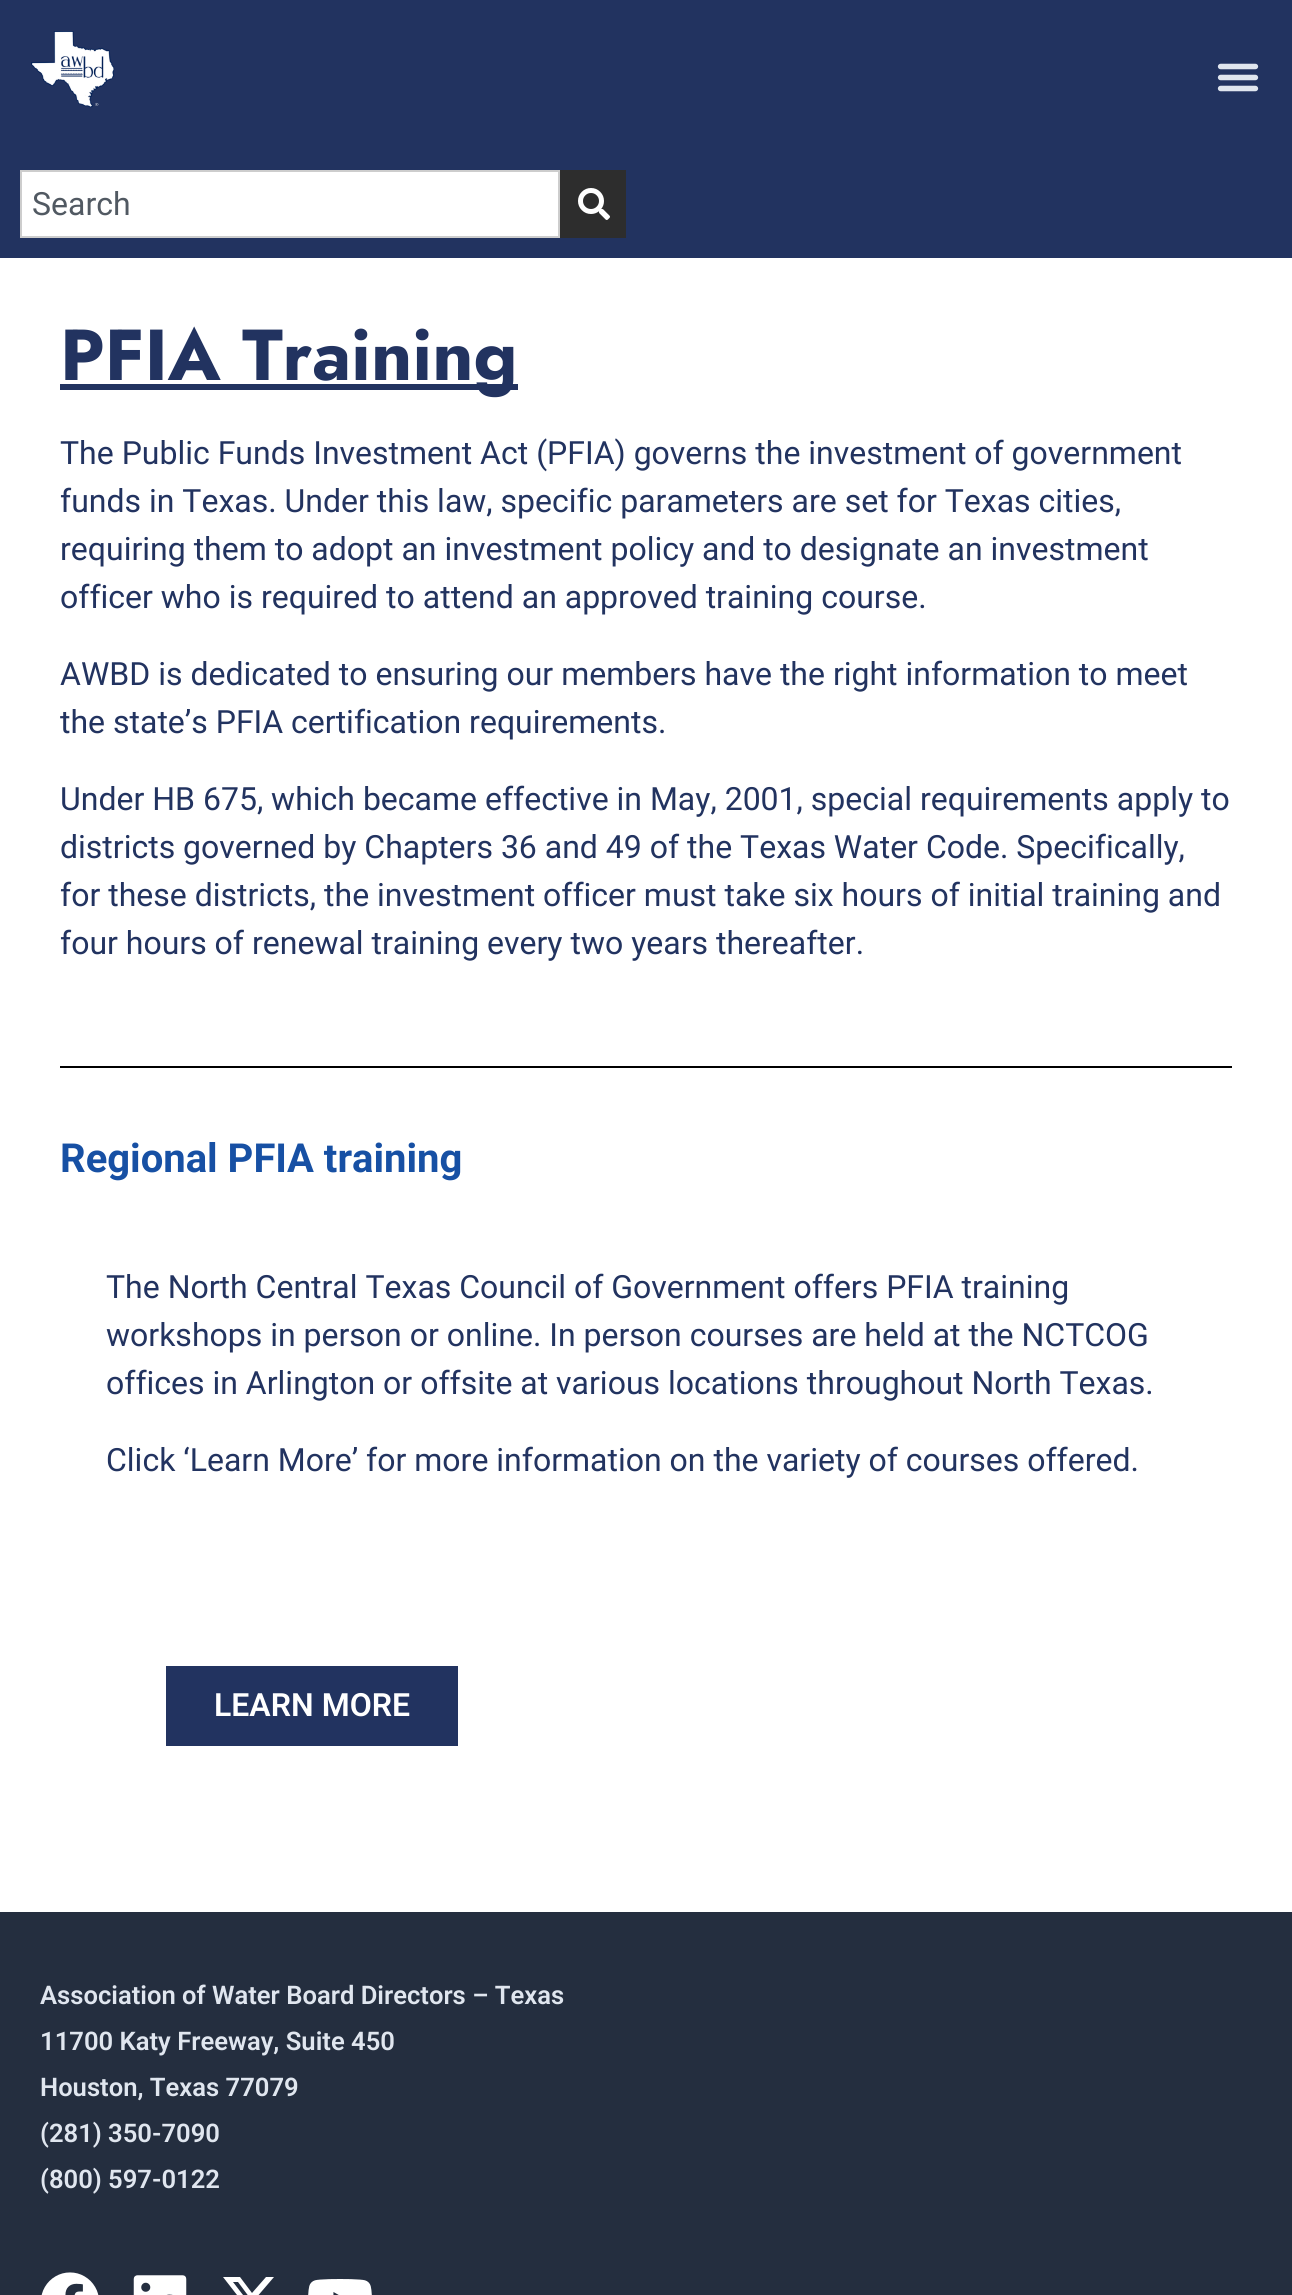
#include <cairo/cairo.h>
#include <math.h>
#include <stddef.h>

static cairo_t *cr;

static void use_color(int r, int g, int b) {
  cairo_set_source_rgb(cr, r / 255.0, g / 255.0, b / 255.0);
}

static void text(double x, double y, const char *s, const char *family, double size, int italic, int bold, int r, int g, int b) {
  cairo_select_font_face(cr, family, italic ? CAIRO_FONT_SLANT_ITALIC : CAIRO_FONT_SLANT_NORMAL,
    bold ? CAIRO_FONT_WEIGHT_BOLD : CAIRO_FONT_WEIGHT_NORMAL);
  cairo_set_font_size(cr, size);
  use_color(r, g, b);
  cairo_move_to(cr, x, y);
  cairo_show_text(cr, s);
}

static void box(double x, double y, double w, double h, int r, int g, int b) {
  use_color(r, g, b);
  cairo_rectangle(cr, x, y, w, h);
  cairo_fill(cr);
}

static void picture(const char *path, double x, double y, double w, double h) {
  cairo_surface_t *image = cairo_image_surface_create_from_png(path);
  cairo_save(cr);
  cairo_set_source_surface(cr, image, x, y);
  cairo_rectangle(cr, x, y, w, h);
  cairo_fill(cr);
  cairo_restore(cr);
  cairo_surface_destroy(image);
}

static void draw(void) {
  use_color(255, 255, 255);
  cairo_paint(cr);
  box(0, 0, 1292, 258, 34, 51, 96);
  picture("img_01.png", 31, 31, 84, 77);
  picture("img_02.png", 1217, 63, 42, 29);
  use_color(255, 255, 255);
  cairo_rectangle(cr, 21, 171, 538, 66);
  cairo_fill_preserve(cr);
  use_color(205, 205, 205);
  cairo_stroke(cr);
  box(560, 170, 66, 68, 45, 45, 45);
  picture("img_03.png", 578, 188, 32, 32);
  box(60, 384, 458, 6, 34, 51, 96);
  box(60, 1066, 1172, 2, 0, 0, 0);
  box(166, 1666, 292, 80, 34, 51, 96);
  box(0, 1912, 1292, 383, 36, 46, 63);
  picture("img_04.png", 41, 2272, 58, 23);
  picture("img_05.png", 133, 2275, 54, 20);
  use_color(255, 255, 255);
  cairo_new_path(cr);
  cairo_move_to(cr, 266, 2277);
  cairo_line_to(cr, 274, 2277);
  cairo_line_to(cr, 256, 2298);
  cairo_line_to(cr, 277, 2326);
  cairo_line_to(cr, 260, 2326);
  cairo_line_to(cr, 247, 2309);
  cairo_line_to(cr, 232, 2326);
  cairo_line_to(cr, 224, 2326);
  cairo_line_to(cr, 244, 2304);
  cairo_line_to(cr, 223, 2277);
  cairo_line_to(cr, 240, 2277);
  cairo_line_to(cr, 252, 2293);
  cairo_close_path(cr);
  cairo_move_to(cr, 263, 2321);
  cairo_line_to(cr, 267, 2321);
  cairo_line_to(cr, 238, 2282);
  cairo_line_to(cr, 233, 2282);
  cairo_close_path(cr);
  cairo_fill(cr);
  picture("img_06.png", 308, 2279, 64, 16);
  text(32, 215, "Search", "Roboto", 32, 0, 0, 81, 89, 98);
  text(60, 380, "PFIA Training", "Jost", 72, 0, 1, 34, 51, 96);
  text(60, 464, "The Public Funds Investment Act (PFIA) governs the investment of government", "Roboto", 32, 0, 0, 34, 51, 96);
  text(60, 512, "funds in Texas. Under this law, specific parameters are set for Texas cities,", "Roboto", 32, 0, 0, 34, 51, 96);
  text(60, 560, "requiring them to adopt an investment policy and to designate an investment", "Roboto", 32, 0, 0, 34, 51, 96);
  text(60, 608, "officer who is required to attend an approved training course.", "Roboto", 32, 0, 0, 34, 51, 96);
  text(60, 685, "AWBD is dedicated to ensuring our members have the right information to meet", "Roboto", 32, 0, 0, 34, 51, 96);
  text(60, 733, "the state’s PFIA certification requirements.", "Roboto", 32, 0, 0, 34, 51, 96);
  text(60, 810, "Under HB 675, which became effective in May, 2001, special requirements apply to", "Roboto", 32, 0, 0, 34, 51, 96);
  text(60, 858, "districts governed by Chapters 36 and 49 of the Texas Water Code. Specifically,", "Roboto", 32, 0, 0, 34, 51, 96);
  text(60, 906, "for these districts, the investment officer must take six hours of initial training and", "Roboto", 32, 0, 0, 34, 51, 96);
  text(60, 954, "four hours of renewal training every two years thereafter.", "Roboto", 32, 0, 0, 34, 51, 96);
  text(60, 1172, "Regional PFIA training", "Roboto", 40, 0, 1, 23, 80, 164);
  text(106, 1298, "The North Central Texas Council of Government offers PFIA training", "Roboto", 32, 0, 0, 34, 51, 96);
  text(106, 1346, "workshops in person or online. In person courses are held at the NCTCOG", "Roboto", 32, 0, 0, 34, 51, 96);
  text(106, 1394, "offices in Arlington or offsite at various locations throughout North Texas.", "Roboto", 32, 0, 0, 34, 51, 96);
  text(106, 1471, "Click ‘Learn More’ for more information on the variety of courses offered.", "Roboto", 32, 0, 0, 34, 51, 96);
  text(214, 1716, "LEARN MORE", "Roboto SemiBold", 32, 0, 0, 255, 255, 255);
  text(40, 2004, "Association of Water Board Directors – Texas", "Roboto SemiBold", 25.6, 0, 0, 224, 230, 239);
  text(40, 2050, "11700 Katy Freeway, Suite 450", "Roboto SemiBold", 25.6, 0, 0, 224, 230, 239);
  text(40, 2096, "Houston, Texas 77079", "Roboto SemiBold", 25.6, 0, 0, 224, 230, 239);
  text(40, 2142, "(281) 350-7090", "Roboto SemiBold", 25.6, 0, 0, 224, 230, 239);
  text(40, 2188, "(800) 597-0122", "Roboto SemiBold", 25.6, 0, 0, 224, 230, 239);
}

int main(void) {
  cairo_surface_t *surface = cairo_image_surface_create(CAIRO_FORMAT_RGB24, 1292, 2295);
  cr = cairo_create(surface);
  cairo_font_options_t *options = cairo_font_options_create();
  cairo_font_options_set_hint_metrics(options, CAIRO_HINT_METRICS_OFF);
  cairo_font_options_set_hint_style(options, CAIRO_HINT_STYLE_NONE);
  cairo_set_font_options(cr, options);
  cairo_set_miter_limit(cr, 4);
  draw();
  cairo_surface_write_to_png(surface, "out.png");
  cairo_font_options_destroy(options);
  cairo_destroy(cr);
  cairo_surface_destroy(surface);
  return 0;
}
